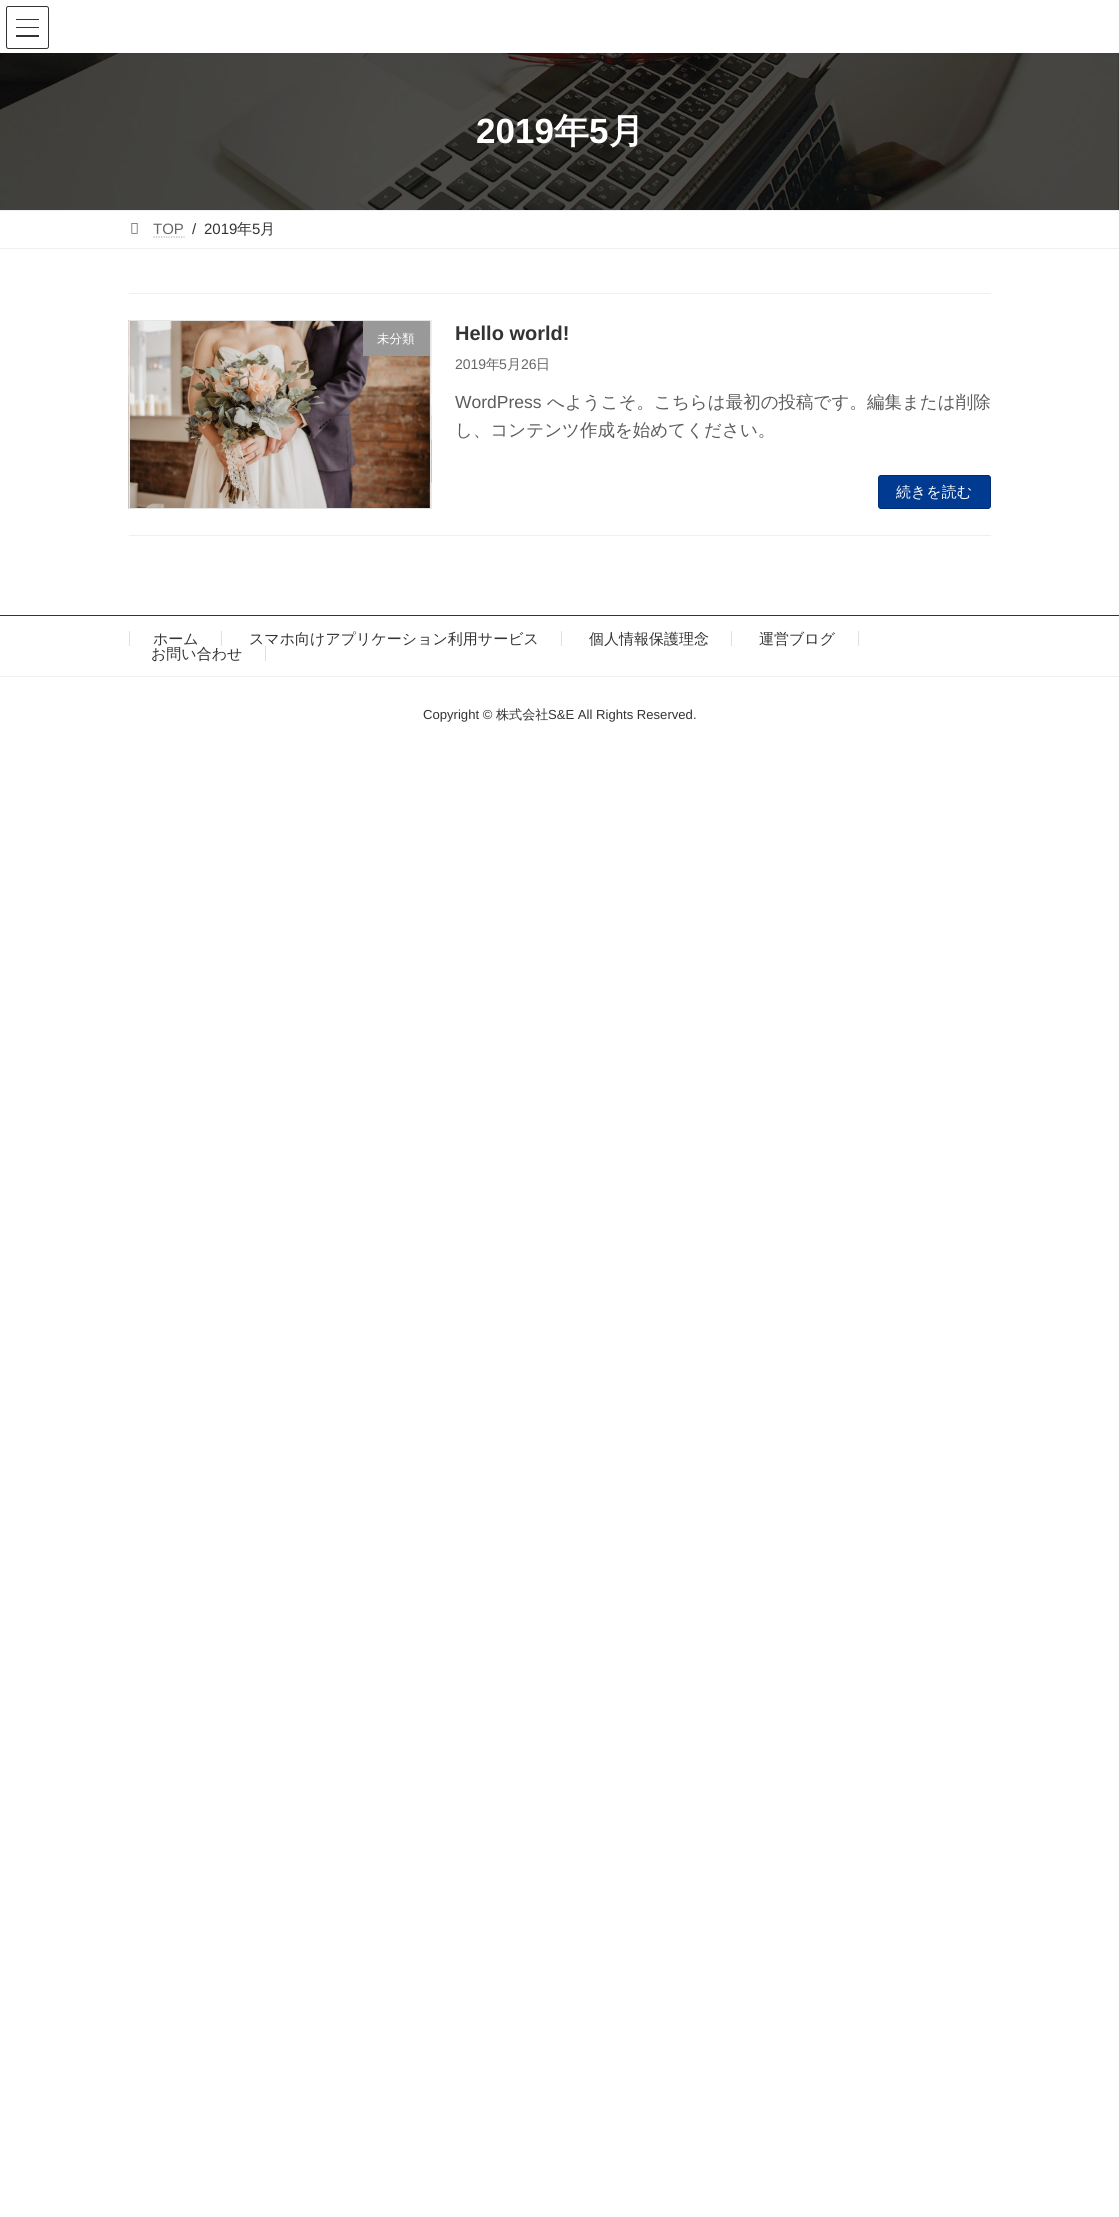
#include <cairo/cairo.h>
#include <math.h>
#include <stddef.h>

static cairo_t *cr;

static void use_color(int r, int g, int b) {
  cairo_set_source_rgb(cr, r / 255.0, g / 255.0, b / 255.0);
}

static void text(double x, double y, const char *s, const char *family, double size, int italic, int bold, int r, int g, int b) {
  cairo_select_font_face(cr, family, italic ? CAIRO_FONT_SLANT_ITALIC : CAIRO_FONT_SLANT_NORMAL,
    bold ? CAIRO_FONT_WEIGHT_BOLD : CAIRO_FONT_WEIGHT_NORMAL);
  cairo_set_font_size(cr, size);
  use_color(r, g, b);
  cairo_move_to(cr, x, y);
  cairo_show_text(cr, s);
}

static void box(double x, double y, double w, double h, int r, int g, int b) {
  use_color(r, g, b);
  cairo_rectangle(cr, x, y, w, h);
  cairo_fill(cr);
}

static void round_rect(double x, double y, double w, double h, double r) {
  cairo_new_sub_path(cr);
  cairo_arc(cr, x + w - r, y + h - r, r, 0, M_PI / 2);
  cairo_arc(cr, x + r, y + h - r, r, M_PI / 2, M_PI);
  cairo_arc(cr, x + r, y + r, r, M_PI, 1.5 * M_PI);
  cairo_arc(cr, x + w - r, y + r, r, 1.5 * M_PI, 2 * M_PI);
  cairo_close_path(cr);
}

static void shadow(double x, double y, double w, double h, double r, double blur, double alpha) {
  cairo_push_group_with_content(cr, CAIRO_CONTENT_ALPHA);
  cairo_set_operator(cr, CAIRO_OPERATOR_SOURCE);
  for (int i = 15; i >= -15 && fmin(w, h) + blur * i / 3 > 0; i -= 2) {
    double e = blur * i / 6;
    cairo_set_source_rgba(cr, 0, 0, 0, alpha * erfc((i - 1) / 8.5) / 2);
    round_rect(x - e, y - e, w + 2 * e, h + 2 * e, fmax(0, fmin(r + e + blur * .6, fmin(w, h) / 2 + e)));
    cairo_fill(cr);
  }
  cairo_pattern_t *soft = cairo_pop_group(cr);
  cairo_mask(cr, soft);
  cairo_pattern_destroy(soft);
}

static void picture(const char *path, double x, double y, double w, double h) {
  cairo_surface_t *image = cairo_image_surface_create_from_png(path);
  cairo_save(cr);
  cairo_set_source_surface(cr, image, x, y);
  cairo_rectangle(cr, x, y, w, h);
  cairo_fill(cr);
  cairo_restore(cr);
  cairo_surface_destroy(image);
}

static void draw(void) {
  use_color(255, 255, 255);
  cairo_paint(cr);
  picture("img_01.png", 0, 53, 1119, 157);
  use_color(0, 0, 0);
  shadow(0, 1, 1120, 53, 0, 2, 0.05);
  box(0, 0, 1119, 53, 255, 255, 255);
  box(16, 19, 23, 1, 51, 51, 51);
  box(16, 27, 23, 1, 51, 51, 51);
  box(16, 35, 23, 2, 51, 51, 51);
  round_rect(6.5, 6.5, 42, 42, 2);
  cairo_set_line_width(cr, 1);
  cairo_stroke(cr);
  box(0, 210, 1119, 1, 240, 240, 240);
  box(0, 248, 1119, 1, 240, 240, 240);
  picture("img_02.png", 131, 223, 7, 11);
  cairo_new_path(cr);
  cairo_move_to(cr, 153.5, 237);
  cairo_line_to(cr, 184.5, 237);
  use_color(179, 179, 179);
  cairo_set_line_width(cr, 1.2);
  cairo_set_dash(cr, (double[]){1.25, 1.25}, 2, 0);
  cairo_stroke(cr);
  box(129, 293, 862, 1, 240, 240, 240);
  box(129, 535, 862, 1, 240, 240, 240);
  picture("img_03.png", 128, 320, 304, 189);
  cairo_rectangle(cr, 129.5, 320.5, 301, 188);
  use_color(229, 229, 229);
  cairo_set_line_width(cr, 1);
  cairo_set_dash(cr, NULL, 0, 0);
  cairo_stroke(cr);
  box(363, 321, 67, 35, 153, 153, 153);
  use_color(0, 58, 145);
  round_rect(878.5, 475.5, 112, 33, 2.5);
  cairo_fill_preserve(cr);
  use_color(0, 46, 116);
  cairo_stroke(cr);
  box(0, 615, 1119, 1, 0, 58, 145);
  box(0, 676, 1119, 1, 240, 240, 240);
  box(221, 631, 1, 15, 224, 224, 224);
  box(129, 631, 1, 15, 224, 224, 224);
  box(561, 631, 1, 15, 224, 224, 224);
  box(731, 631, 1, 15, 224, 224, 224);
  box(858, 631, 1, 15, 224, 224, 224);
  text(476, 143, "2019", "Liberation Sans", 35, 0, 1, 255, 255, 255);
  text(554, 143, "年", "WenQuanYi Zen Hei", 35, 0, 1, 255, 255, 255);
  text(589, 143, "5", "Liberation Sans", 35, 0, 1, 255, 255, 255);
  text(609, 143, "月", "WenQuanYi Zen Hei", 35, 0, 1, 255, 255, 255);
  text(153, 234, "TOP", "Liberation Sans", 15, 0, 0, 102, 102, 102);
  text(192, 234, "/", "Liberation Sans", 15, 0, 0, 51, 51, 51);
  text(204, 234, "2019", "Liberation Sans", 15, 0, 0, 51, 51, 51);
  text(237, 234, "年", "WenQuanYi Zen Hei Medium", 15, 0, 0, 51, 51, 51);
  text(252, 234, "5", "Liberation Sans", 15, 0, 0, 51, 51, 51);
  text(260, 234, "月", "WenQuanYi Zen Hei Medium", 15, 0, 0, 51, 51, 51);
  text(377, 343, "未分類", "WenQuanYi Zen Hei Medium", 12.5, 0, 0, 255, 255, 255);
  text(455, 340, "Hello world!", "Liberation Sans", 20, 0, 1, 51, 51, 51);
  text(455, 369, "2019", "Liberation Sans", 14, 0, 0, 102, 102, 102);
  text(486, 369, "年", "WenQuanYi Zen Hei Medium", 14, 0, 0, 102, 102, 102);
  text(499, 369, "5", "Liberation Sans", 14, 0, 0, 102, 102, 102);
  text(507, 369, "月", "WenQuanYi Zen Hei Medium", 14, 0, 0, 102, 102, 102);
  text(521, 369, "26", "Liberation Sans", 14, 0, 0, 102, 102, 102);
  text(536, 369, "日", "WenQuanYi Zen Hei Medium", 14, 0, 0, 102, 102, 102);
  text(455, 408, "WordPress", "Liberation Sans", 17.5, 0, 0, 92, 92, 92);
  text(547, 408, "へようこそ。こちらは最初の投稿です。編集または削除", "WenQuanYi Zen Hei Medium", 17.5, 0, 0, 92, 92, 92);
  text(455, 436, "し、コンテンツ作成を始めてください。", "WenQuanYi Zen Hei Medium", 17.5, 0, 0, 92, 92, 92);
  text(896, 497, "続きを読む", "WenQuanYi Zen Hei Medium", 15, 0, 0, 255, 255, 255);
  text(153, 644, "ホーム", "WenQuanYi Zen Hei Medium", 15, 0, 0, 51, 51, 51);
  text(249, 644, "スマホ向けアプリケーション利用サービス", "WenQuanYi Zen Hei Medium", 15, 0, 0, 51, 51, 51);
  text(589, 644, "個人情報保護理念", "WenQuanYi Zen Hei Medium", 15, 0, 0, 51, 51, 51);
  text(759, 644, "運営ブログ", "WenQuanYi Zen Hei Medium", 15, 0, 0, 51, 51, 51);
  box(265, 646, 1, 15, 224, 224, 224);
  text(151, 659, "お問い合わせ", "WenQuanYi Zen Hei Medium", 15, 0, 0, 51, 51, 51);
  text(423, 719, "Copyright ©", "Liberation Sans", 13.1, 0, 0, 51, 51, 51);
  text(496, 719, "株式会社", "WenQuanYi Zen Hei Medium", 13.1, 0, 0, 51, 51, 51);
  text(548, 719, "S&E All Rights Reserved.", "Liberation Sans", 13.1, 0, 0, 51, 51, 51);
}

int main(void) {
  cairo_surface_t *surface = cairo_image_surface_create(CAIRO_FORMAT_RGB24, 1119, 2217);
  cr = cairo_create(surface);
  cairo_font_options_t *options = cairo_font_options_create();
  cairo_font_options_set_hint_metrics(options, CAIRO_HINT_METRICS_OFF);
  cairo_font_options_set_hint_style(options, CAIRO_HINT_STYLE_NONE);
  cairo_set_font_options(cr, options);
  cairo_set_miter_limit(cr, 4);
  draw();
  cairo_surface_write_to_png(surface, "out.png");
  cairo_font_options_destroy(options);
  cairo_destroy(cr);
  cairo_surface_destroy(surface);
  return 0;
}
